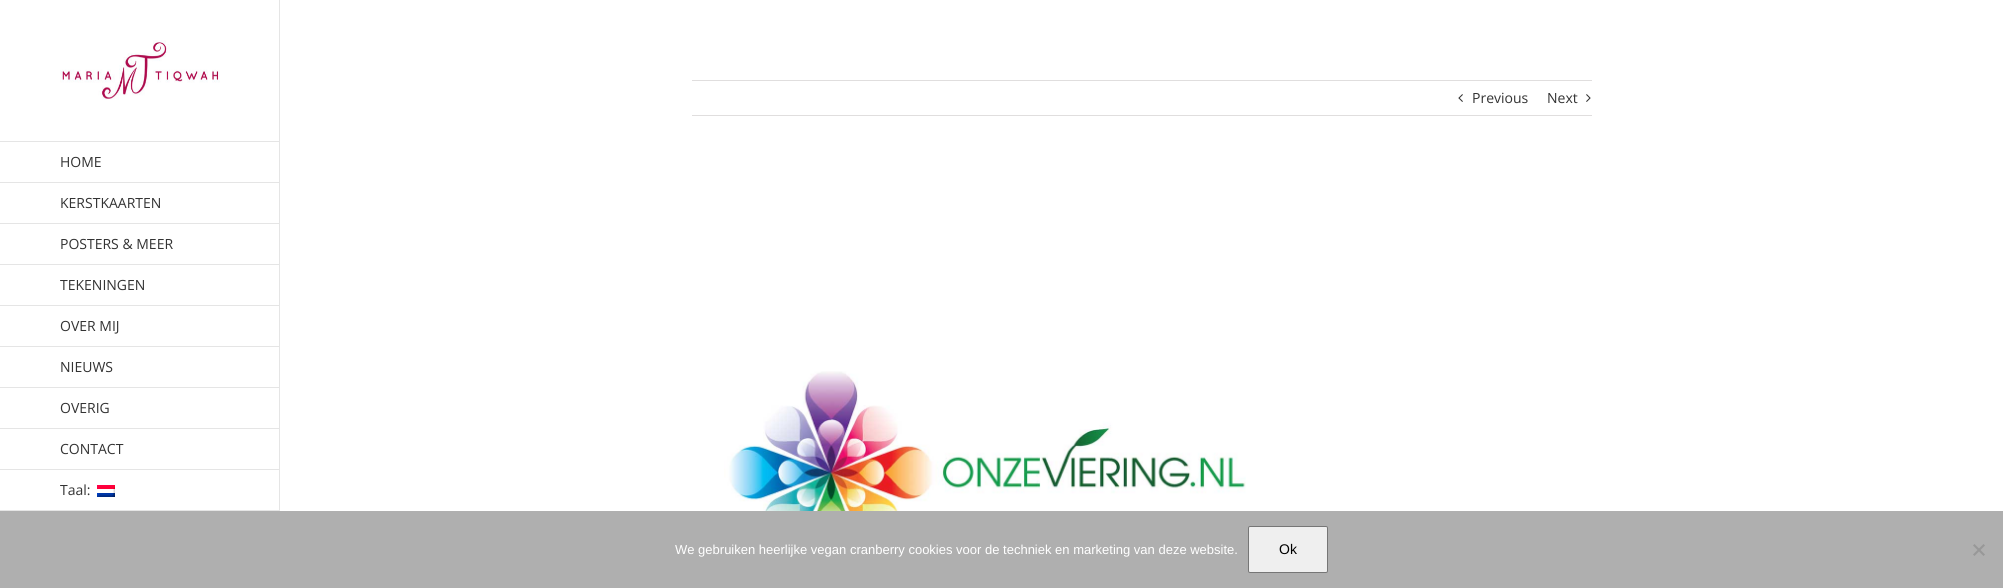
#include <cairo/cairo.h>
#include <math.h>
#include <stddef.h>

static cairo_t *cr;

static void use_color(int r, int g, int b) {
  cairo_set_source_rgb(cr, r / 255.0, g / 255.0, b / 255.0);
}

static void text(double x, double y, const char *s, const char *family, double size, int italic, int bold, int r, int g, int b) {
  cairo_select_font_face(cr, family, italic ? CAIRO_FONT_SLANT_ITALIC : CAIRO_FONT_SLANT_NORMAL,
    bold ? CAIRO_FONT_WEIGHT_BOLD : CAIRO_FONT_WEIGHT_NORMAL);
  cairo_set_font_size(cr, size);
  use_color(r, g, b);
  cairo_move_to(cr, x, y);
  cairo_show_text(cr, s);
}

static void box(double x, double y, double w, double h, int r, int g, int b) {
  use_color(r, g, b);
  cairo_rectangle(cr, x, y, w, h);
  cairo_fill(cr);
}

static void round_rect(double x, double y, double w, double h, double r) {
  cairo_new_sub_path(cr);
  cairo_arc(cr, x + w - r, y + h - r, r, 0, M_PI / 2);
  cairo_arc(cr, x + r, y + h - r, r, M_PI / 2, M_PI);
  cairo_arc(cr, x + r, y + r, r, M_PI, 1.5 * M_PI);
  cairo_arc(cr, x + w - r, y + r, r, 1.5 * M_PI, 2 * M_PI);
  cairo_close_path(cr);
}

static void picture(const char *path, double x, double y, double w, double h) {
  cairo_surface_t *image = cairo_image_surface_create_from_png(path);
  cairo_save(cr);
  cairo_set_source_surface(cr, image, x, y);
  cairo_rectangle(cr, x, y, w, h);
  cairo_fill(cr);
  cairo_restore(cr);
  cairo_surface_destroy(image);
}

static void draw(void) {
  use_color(255, 255, 255);
  cairo_paint(cr);
  box(692, 80, 900, 1, 224, 222, 222);
  box(692, 115, 900, 1, 224, 222, 222);
  picture("img_01.png", 1458, 94, 5, 8);
  picture("img_02.png", 1586, 94, 5, 8);
  picture("img_03.png", 724, 371, 522, 140);
  picture("img_04.png", 60, 40, 160, 60);
  box(279, 0, 1, 510, 229, 229, 229);
  box(0, 141, 280, 1, 229, 229, 229);
  box(0, 182, 280, 1, 229, 229, 229);
  box(0, 223, 280, 1, 229, 229, 229);
  box(0, 264, 280, 1, 229, 229, 229);
  box(0, 305, 280, 1, 229, 229, 229);
  box(0, 346, 280, 1, 229, 229, 229);
  box(0, 387, 280, 1, 229, 229, 229);
  box(0, 428, 280, 1, 229, 229, 229);
  box(0, 469, 280, 1, 229, 229, 229);
  box(0, 510, 280, 1, 229, 229, 229);
  picture("img_05.png", 97, 485, 18, 12);
  box(0, 511, 2003, 77, 175, 175, 175);
  use_color(239, 239, 239);
  round_rect(1248.5, 526.5, 79, 46, 1.5);
  cairo_fill_preserve(cr);
  use_color(118, 118, 118);
  cairo_set_line_width(cr, 1);
  cairo_stroke(cr);
  use_color(152, 152, 152);
  cairo_new_path(cr);
  cairo_move_to(cr, 1983.5, 544);
  cairo_line_to(cr, 1985, 545.5);
  cairo_line_to(cr, 1974.5, 556);
  cairo_line_to(cr, 1973, 554.5);
  cairo_close_path(cr);
  cairo_fill(cr);
  cairo_new_path(cr);
  cairo_move_to(cr, 1973, 545.5);
  cairo_line_to(cr, 1974.5, 544);
  cairo_line_to(cr, 1985, 554.5);
  cairo_line_to(cr, 1983.5, 556);
  cairo_close_path(cr);
  cairo_fill(cr);
  text(1472, 103, "Previous", "Open Sans", 14, 0, 0, 51, 51, 51);
  text(1547, 103, "Next", "Open Sans", 14, 0, 0, 51, 51, 51);
  text(60, 167, "HOME", "Open Sans", 14, 0, 0, 51, 51, 51);
  text(60, 208, "KERSTKAARTEN", "Open Sans", 14, 0, 0, 51, 51, 51);
  text(60, 249, "POSTERS & MEER", "Open Sans", 14, 0, 0, 51, 51, 51);
  text(60, 290, "TEKENINGEN", "Open Sans", 14, 0, 0, 51, 51, 51);
  text(60, 331, "OVER MIJ", "Open Sans", 14, 0, 0, 51, 51, 51);
  text(60, 372, "NIEUWS", "Open Sans", 14, 0, 0, 51, 51, 51);
  text(60, 413, "OVERIG", "Open Sans", 14, 0, 0, 51, 51, 51);
  text(60, 454, "CONTACT", "Open Sans", 14, 0, 0, 51, 51, 51);
  text(60, 495, "Taal:", "Open Sans", 14, 0, 0, 51, 51, 51);
  text(675, 554, "We gebruiken heerlijke vegan cranberry cookies voor de techniek en marketing van deze website.", "Liberation Sans", 13, 0, 0, 255, 255, 255);
  text(1279, 554, "Ok", "Liberation Sans", 14, 0, 0, 0, 0, 0);
}

int main(void) {
  cairo_surface_t *surface = cairo_image_surface_create(CAIRO_FORMAT_RGB24, 2003, 588);
  cr = cairo_create(surface);
  cairo_font_options_t *options = cairo_font_options_create();
  cairo_font_options_set_hint_metrics(options, CAIRO_HINT_METRICS_OFF);
  cairo_font_options_set_hint_style(options, CAIRO_HINT_STYLE_NONE);
  cairo_set_font_options(cr, options);
  cairo_set_miter_limit(cr, 4);
  draw();
  cairo_surface_write_to_png(surface, "out.png");
  cairo_font_options_destroy(options);
  cairo_destroy(cr);
  cairo_surface_destroy(surface);
  return 0;
}
